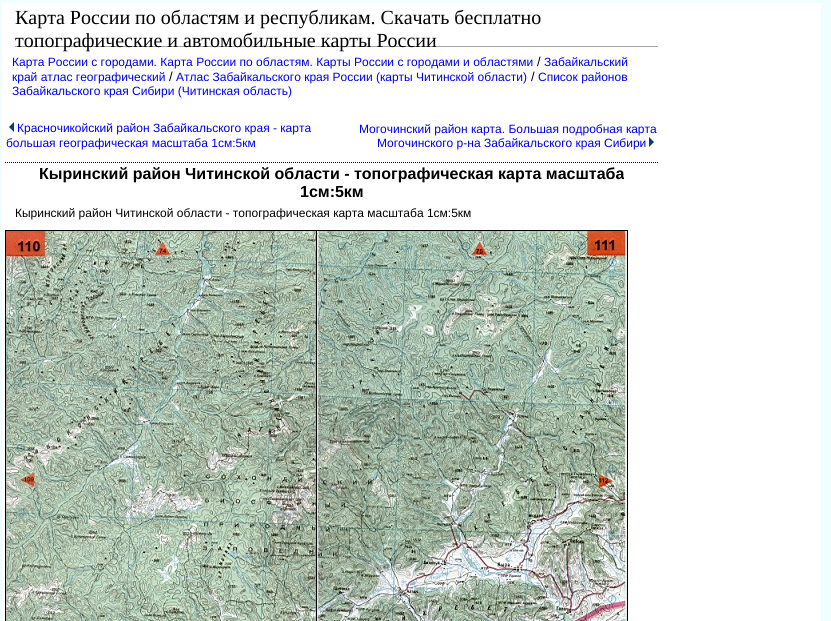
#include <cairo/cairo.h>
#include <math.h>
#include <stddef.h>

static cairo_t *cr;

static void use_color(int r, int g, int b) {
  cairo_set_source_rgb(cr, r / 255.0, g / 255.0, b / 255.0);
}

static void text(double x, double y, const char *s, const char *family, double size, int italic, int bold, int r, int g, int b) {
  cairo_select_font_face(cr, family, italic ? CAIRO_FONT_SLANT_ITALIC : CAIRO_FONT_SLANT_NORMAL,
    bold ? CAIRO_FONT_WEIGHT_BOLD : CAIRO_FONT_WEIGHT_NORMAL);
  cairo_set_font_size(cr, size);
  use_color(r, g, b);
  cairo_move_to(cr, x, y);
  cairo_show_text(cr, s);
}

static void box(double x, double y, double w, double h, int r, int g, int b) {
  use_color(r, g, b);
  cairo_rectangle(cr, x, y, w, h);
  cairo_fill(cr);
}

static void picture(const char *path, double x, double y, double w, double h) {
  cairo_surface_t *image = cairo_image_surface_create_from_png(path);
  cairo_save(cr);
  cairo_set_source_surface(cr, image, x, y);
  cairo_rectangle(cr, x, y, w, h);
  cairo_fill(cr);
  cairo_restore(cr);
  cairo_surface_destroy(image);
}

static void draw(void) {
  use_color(239, 255, 255);
  cairo_paint(cr);
  box(2, 3, 819, 618, 255, 255, 255);
  box(15, 46, 643, 1, 161, 164, 166);
  picture("img_01.png", 9, 122, 5, 10);
  picture("img_02.png", 649, 137, 5, 10);
  cairo_new_path(cr);
  cairo_move_to(cr, 5, 162.5);
  cairo_line_to(cr, 658, 162.5);
  use_color(0, 0, 0);
  cairo_set_line_width(cr, 1);
  cairo_set_dash(cr, (double[]){1, 1}, 2, 0);
  cairo_stroke(cr);
  box(316, 230, 312, 1, 0, 0, 0);
  box(316, 230, 1, 391, 0, 0, 0);
  box(5, 230, 312, 1, 0, 0, 0);
  box(5, 230, 1, 391, 0, 0, 0);
  picture("img_03.png", 6, 231, 310, 390);
  box(627, 230, 1, 391, 0, 0, 0);
  picture("img_04.png", 317, 231, 310, 390);
  text(15, 24, "Карта России по областям и республикам. Скачать бесплатно", "Liberation Serif", 20, 0, 0, 0, 0, 0);
  text(15, 47, "топографические и автомобильные карты России", "Liberation Serif", 20, 0, 0, 0, 0, 0);
  text(12, 66, "Карта России с городами. Карта России по областям. Карты России с городами и областями", "Liberation Sans", 12, 0, 0, 0, 0, 238);
  text(537, 66, "/", "Liberation Sans", 13, 0, 0, 0, 0, 0);
  text(544, 66, "Забайкальский", "Liberation Sans", 12, 0, 0, 0, 0, 238);
  text(12, 81, "край атлас географический", "Liberation Sans", 12, 0, 0, 0, 0, 238);
  text(169, 81, "/", "Liberation Sans", 13, 0, 0, 0, 0, 0);
  text(176, 81, "Атлас Забайкальского края России (карты Читинской области)", "Liberation Sans", 12, 0, 0, 0, 0, 238);
  text(531, 81, "/", "Liberation Sans", 13, 0, 0, 0, 0, 0);
  text(538, 81, "Список районов", "Liberation Sans", 12, 0, 0, 0, 0, 238);
  text(12, 95, "Забайкальского края Сибири (Читинская область)", "Liberation Sans", 12, 0, 0, 0, 0, 238);
  text(17, 132, "Красночикойский район Забайкальского края - карта", "Liberation Sans", 12, 0, 0, 0, 0, 238);
  text(6, 147, "большая географическая масштаба 1см:5км", "Liberation Sans", 12, 0, 0, 0, 0, 238);
  text(359, 133, "Могочинский район карта. Большая подробная карта", "Liberation Sans", 12, 0, 0, 0, 0, 238);
  text(377, 147, "Могочинского р-на Забайкальского края Сибири", "Liberation Sans", 12, 0, 0, 0, 0, 238);
  text(39, 179, "Кыринский район Читинской области - топографическая карта масштаба", "Liberation Sans", 16, 0, 1, 0, 0, 0);
  text(300, 197, "1см:5км", "Liberation Sans", 16, 0, 1, 0, 0, 0);
  text(15, 217, "Кыринский район Читинской области - топографическая карта масштаба 1см:5км", "Liberation Sans", 12, 0, 0, 0, 0, 0);
}

int main(void) {
  cairo_surface_t *surface = cairo_image_surface_create(CAIRO_FORMAT_RGB24, 831, 621);
  cr = cairo_create(surface);
  cairo_font_options_t *options = cairo_font_options_create();
  cairo_font_options_set_hint_metrics(options, CAIRO_HINT_METRICS_OFF);
  cairo_font_options_set_hint_style(options, CAIRO_HINT_STYLE_NONE);
  cairo_set_font_options(cr, options);
  cairo_set_miter_limit(cr, 4);
  draw();
  cairo_surface_write_to_png(surface, "out.png");
  cairo_font_options_destroy(options);
  cairo_destroy(cr);
  cairo_surface_destroy(surface);
  return 0;
}
